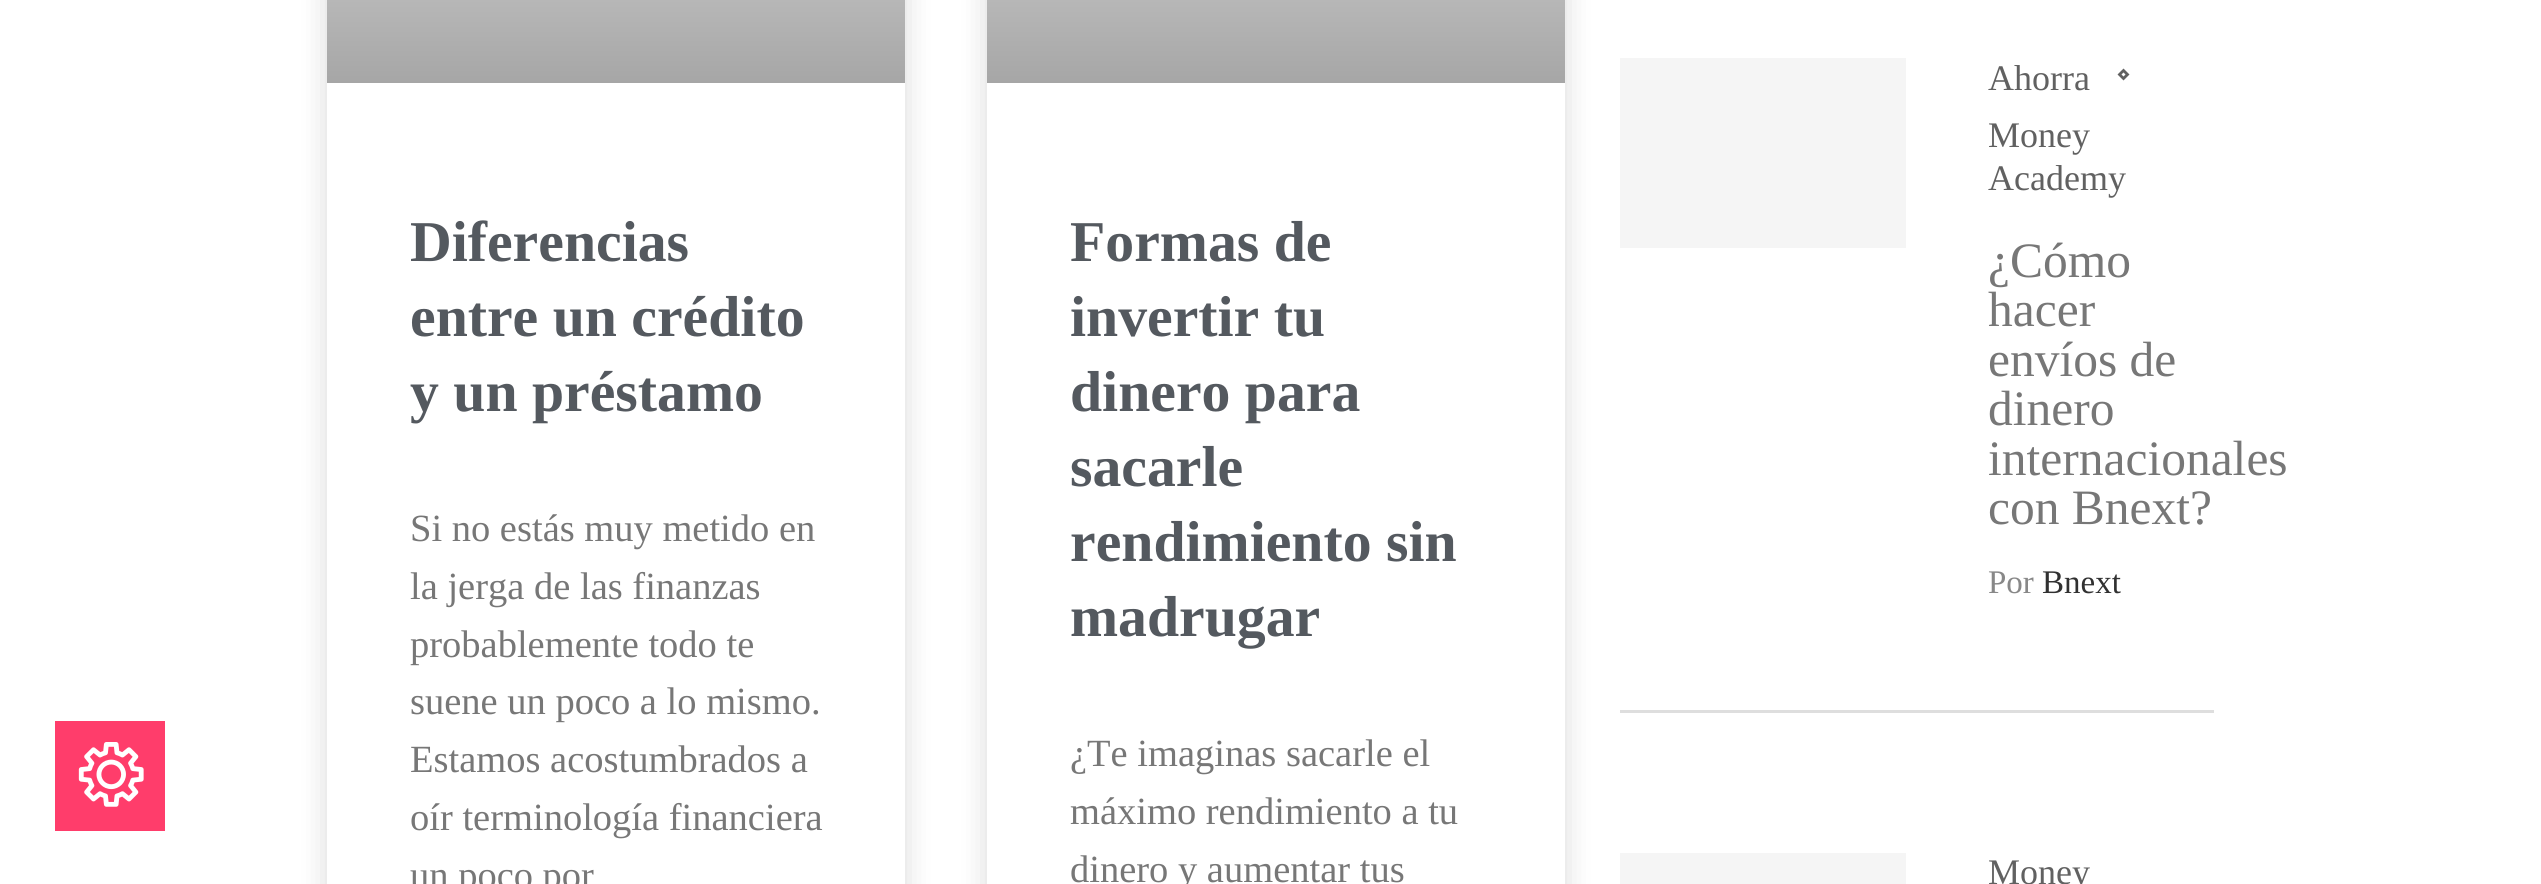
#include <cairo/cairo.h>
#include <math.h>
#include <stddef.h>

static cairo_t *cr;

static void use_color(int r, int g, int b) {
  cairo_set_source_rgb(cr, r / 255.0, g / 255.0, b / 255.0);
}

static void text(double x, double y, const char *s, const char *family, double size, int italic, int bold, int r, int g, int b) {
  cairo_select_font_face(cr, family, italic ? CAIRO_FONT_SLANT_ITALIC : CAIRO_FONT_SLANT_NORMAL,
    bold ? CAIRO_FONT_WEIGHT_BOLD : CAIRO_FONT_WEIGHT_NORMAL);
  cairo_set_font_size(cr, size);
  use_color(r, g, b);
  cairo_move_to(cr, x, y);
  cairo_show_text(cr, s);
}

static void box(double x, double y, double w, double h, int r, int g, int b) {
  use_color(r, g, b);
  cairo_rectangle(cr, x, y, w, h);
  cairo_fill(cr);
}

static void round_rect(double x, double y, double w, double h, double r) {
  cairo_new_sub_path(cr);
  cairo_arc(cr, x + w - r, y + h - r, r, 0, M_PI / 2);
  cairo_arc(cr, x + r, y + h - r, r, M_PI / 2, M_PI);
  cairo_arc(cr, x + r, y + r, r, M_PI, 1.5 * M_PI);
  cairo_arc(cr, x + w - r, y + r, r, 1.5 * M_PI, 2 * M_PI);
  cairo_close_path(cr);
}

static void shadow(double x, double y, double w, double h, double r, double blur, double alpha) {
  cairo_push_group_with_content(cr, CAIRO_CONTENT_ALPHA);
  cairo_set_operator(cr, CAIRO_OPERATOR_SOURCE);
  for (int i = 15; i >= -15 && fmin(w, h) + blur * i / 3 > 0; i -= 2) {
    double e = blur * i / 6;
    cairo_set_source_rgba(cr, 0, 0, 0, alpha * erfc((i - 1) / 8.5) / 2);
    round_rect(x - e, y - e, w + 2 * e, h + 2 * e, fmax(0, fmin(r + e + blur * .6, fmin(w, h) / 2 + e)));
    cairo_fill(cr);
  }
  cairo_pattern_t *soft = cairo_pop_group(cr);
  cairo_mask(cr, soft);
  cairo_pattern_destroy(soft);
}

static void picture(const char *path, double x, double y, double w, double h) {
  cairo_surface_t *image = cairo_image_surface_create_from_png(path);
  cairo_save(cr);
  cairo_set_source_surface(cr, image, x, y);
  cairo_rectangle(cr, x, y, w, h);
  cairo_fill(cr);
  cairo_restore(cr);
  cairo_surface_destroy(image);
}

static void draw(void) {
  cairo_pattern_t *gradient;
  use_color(255, 255, 255);
  cairo_paint(cr);
  box(55, 721, 110, 110, 255, 61, 107);
  picture("img_01.png", 78, 742, 66, 65);
  use_color(0, 0, 0);
  shadow(327, -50, 578, 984, 8, 14, 0.15);
  box(327, 83, 578, 801, 255, 255, 255);
  gradient = cairo_pattern_create_linear(616, 83, 616, -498);
  cairo_pattern_add_color_stop_rgba(gradient, 0, 0.651, 0.651, 0.651, 1);
  cairo_pattern_add_color_stop_rgba(gradient, 0.75, 1, 1, 1, 1);
  cairo_set_source(cr, gradient);
  cairo_pattern_destroy(gradient);
  cairo_rectangle(cr, 327, 0, 578, 83);
  cairo_fill(cr);
  use_color(0, 0, 0);
  shadow(987, -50, 578, 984, 8, 14, 0.15);
  box(987, 83, 578, 801, 255, 255, 255);
  gradient = cairo_pattern_create_linear(1276, 83, 1276, -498);
  cairo_pattern_add_color_stop_rgba(gradient, 0, 0.651, 0.651, 0.651, 1);
  cairo_pattern_add_color_stop_rgba(gradient, 0.75, 1, 1, 1, 1);
  cairo_set_source(cr, gradient);
  cairo_pattern_destroy(gradient);
  cairo_rectangle(cr, 987, 0, 578, 83);
  cairo_fill(cr);
  box(1620, 710, 594, 3, 222, 222, 222);
  box(1620, 58, 286, 190, 245, 245, 245);
  cairo_new_path(cr);
  cairo_move_to(cr, 2123.5, 70.5);
  cairo_line_to(cr, 2127.5, 74.5);
  cairo_line_to(cr, 2123.5, 78.5);
  cairo_line_to(cr, 2119.5, 74.5);
  cairo_close_path(cr);
  use_color(97, 97, 97);
  cairo_set_line_width(cr, 2.8);
  cairo_stroke(cr);
  box(1620, 853, 286, 31, 245, 245, 245);
  text(410, 261, "Diferencias", "Liberation Serif", 57.75, 0, 1, 84, 89, 95);
  text(410, 336, "entre un crédito", "Liberation Serif", 57.75, 0, 1, 84, 89, 95);
  text(410, 411, "y un préstamo", "Liberation Serif", 57.75, 0, 1, 84, 89, 95);
  text(410, 541, "Si no estás muy metido en", "Liberation Serif", 38.5, 0, 0, 119, 119, 119);
  text(410, 599, "la jerga de las finanzas", "Liberation Serif", 38.5, 0, 0, 119, 119, 119);
  text(410, 657, "probablemente todo te", "Liberation Serif", 38.5, 0, 0, 119, 119, 119);
  text(410, 714, "suene un poco a lo mismo.", "Liberation Serif", 38.5, 0, 0, 119, 119, 119);
  text(410, 772, "Estamos acostumbrados a", "Liberation Serif", 38.5, 0, 0, 119, 119, 119);
  text(410, 830, "oír terminología financiera", "Liberation Serif", 38.5, 0, 0, 119, 119, 119);
  text(410, 888, "un poco por", "Liberation Serif", 38.5, 0, 0, 119, 119, 119);
  text(1070, 261, "Formas de", "Liberation Serif", 57.75, 0, 1, 84, 89, 95);
  text(1070, 336, "invertir tu", "Liberation Serif", 57.75, 0, 1, 84, 89, 95);
  text(1070, 411, "dinero para", "Liberation Serif", 57.75, 0, 1, 84, 89, 95);
  text(1070, 486, "sacarle", "Liberation Serif", 57.75, 0, 1, 84, 89, 95);
  text(1070, 561, "rendimiento sin", "Liberation Serif", 57.75, 0, 1, 84, 89, 95);
  text(1070, 636, "madrugar", "Liberation Serif", 57.75, 0, 1, 84, 89, 95);
  text(1070, 766, "¿Te imaginas sacarle el", "Liberation Serif", 38.5, 0, 0, 119, 119, 119);
  text(1070, 824, "máximo rendimiento a tu", "Liberation Serif", 38.5, 0, 0, 119, 119, 119);
  text(1070, 882, "dinero y aumentar tus", "Liberation Serif", 38.5, 0, 0, 119, 119, 119);
  text(1988, 90, "Ahorra", "Liberation Serif", 36, 0, 0, 97, 97, 97);
  text(1988, 147, "Money", "Liberation Serif", 36, 0, 0, 97, 97, 97);
  text(1988, 190, "Academy", "Liberation Serif", 36, 0, 0, 97, 97, 97);
  text(1988, 277, "¿Cómo", "Liberation Serif", 49.5, 0, 0, 119, 119, 119);
  text(1988, 326, "hacer", "Liberation Serif", 49.5, 0, 0, 119, 119, 119);
  text(1988, 376, "envíos de", "Liberation Serif", 49.5, 0, 0, 119, 119, 119);
  text(1988, 425, "dinero", "Liberation Serif", 49.5, 0, 0, 119, 119, 119);
  text(1988, 475, "internacionales", "Liberation Serif", 49.5, 0, 0, 119, 119, 119);
  text(1988, 524, "con Bnext?", "Liberation Serif", 49.5, 0, 0, 119, 119, 119);
  text(1988, 593, "Por", "Liberation Serif", 33, 0, 0, 136, 136, 136);
  text(2042, 593, "Bnext", "Liberation Serif", 33, 0, 0, 49, 49, 49);
  text(1988, 884, "Money", "Liberation Serif", 36, 0, 0, 97, 97, 97);
}

int main(void) {
  cairo_surface_t *surface = cairo_image_surface_create(CAIRO_FORMAT_RGB24, 2541, 884);
  cr = cairo_create(surface);
  cairo_font_options_t *options = cairo_font_options_create();
  cairo_font_options_set_hint_metrics(options, CAIRO_HINT_METRICS_OFF);
  cairo_font_options_set_hint_style(options, CAIRO_HINT_STYLE_NONE);
  cairo_set_font_options(cr, options);
  cairo_set_miter_limit(cr, 4);
  draw();
  cairo_surface_write_to_png(surface, "out.png");
  cairo_font_options_destroy(options);
  cairo_destroy(cr);
  cairo_surface_destroy(surface);
  return 0;
}
